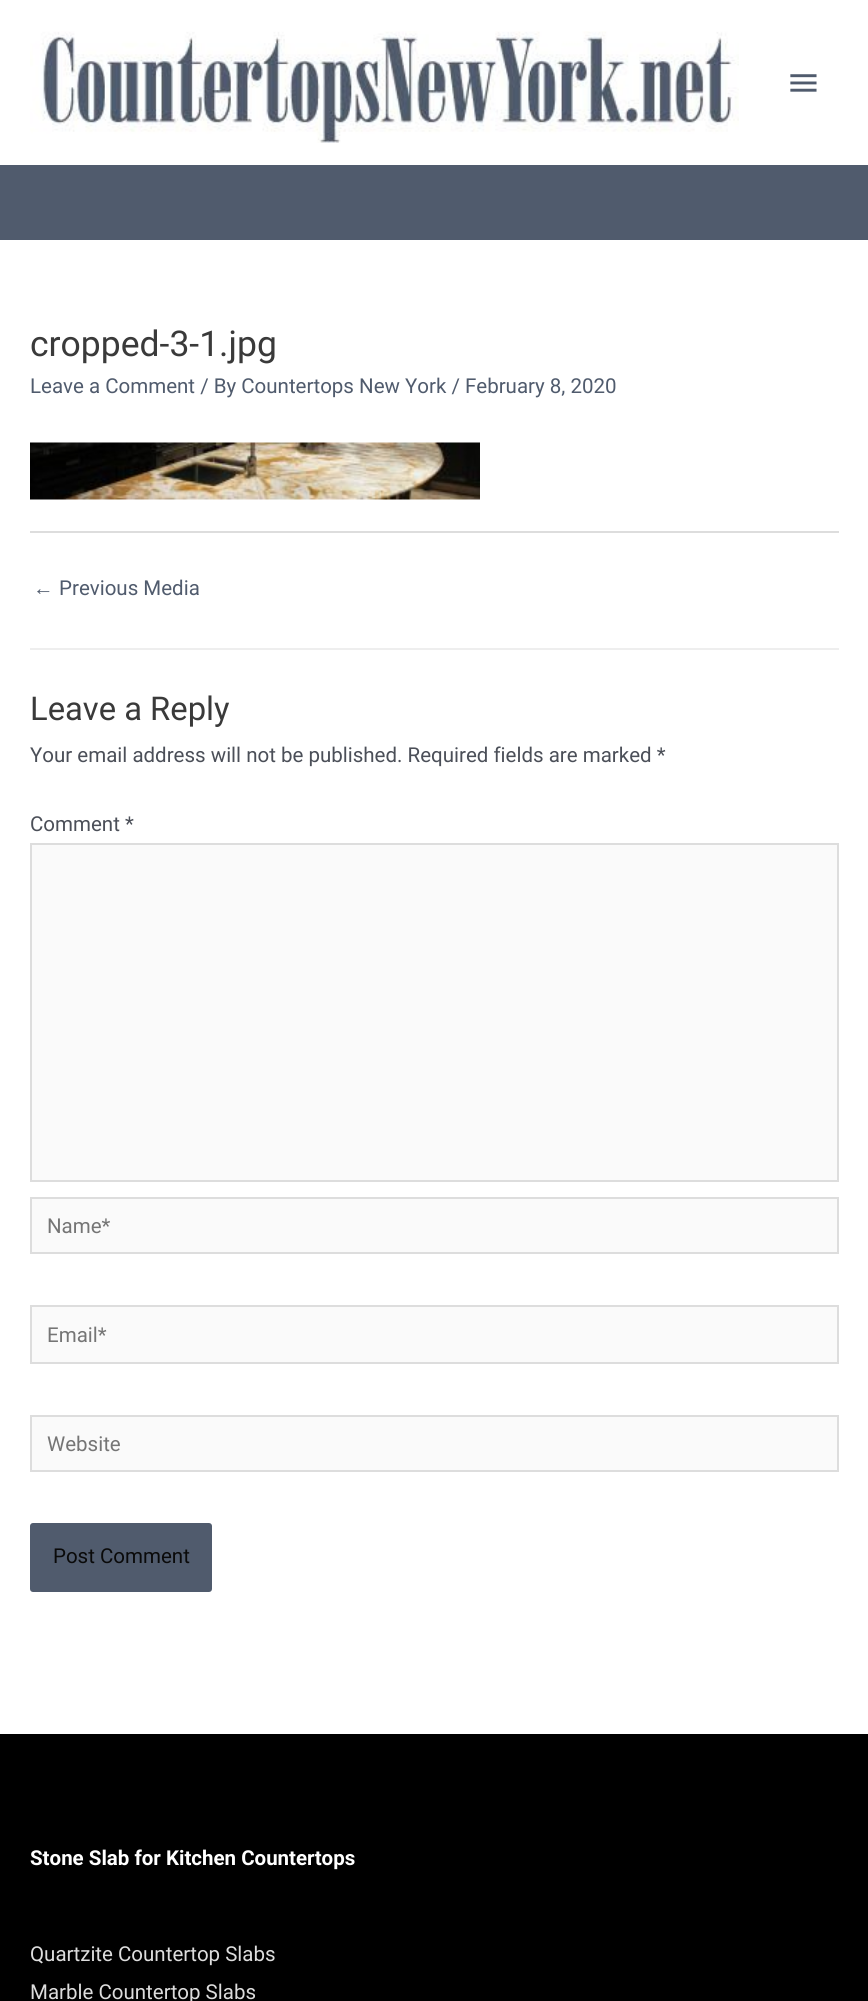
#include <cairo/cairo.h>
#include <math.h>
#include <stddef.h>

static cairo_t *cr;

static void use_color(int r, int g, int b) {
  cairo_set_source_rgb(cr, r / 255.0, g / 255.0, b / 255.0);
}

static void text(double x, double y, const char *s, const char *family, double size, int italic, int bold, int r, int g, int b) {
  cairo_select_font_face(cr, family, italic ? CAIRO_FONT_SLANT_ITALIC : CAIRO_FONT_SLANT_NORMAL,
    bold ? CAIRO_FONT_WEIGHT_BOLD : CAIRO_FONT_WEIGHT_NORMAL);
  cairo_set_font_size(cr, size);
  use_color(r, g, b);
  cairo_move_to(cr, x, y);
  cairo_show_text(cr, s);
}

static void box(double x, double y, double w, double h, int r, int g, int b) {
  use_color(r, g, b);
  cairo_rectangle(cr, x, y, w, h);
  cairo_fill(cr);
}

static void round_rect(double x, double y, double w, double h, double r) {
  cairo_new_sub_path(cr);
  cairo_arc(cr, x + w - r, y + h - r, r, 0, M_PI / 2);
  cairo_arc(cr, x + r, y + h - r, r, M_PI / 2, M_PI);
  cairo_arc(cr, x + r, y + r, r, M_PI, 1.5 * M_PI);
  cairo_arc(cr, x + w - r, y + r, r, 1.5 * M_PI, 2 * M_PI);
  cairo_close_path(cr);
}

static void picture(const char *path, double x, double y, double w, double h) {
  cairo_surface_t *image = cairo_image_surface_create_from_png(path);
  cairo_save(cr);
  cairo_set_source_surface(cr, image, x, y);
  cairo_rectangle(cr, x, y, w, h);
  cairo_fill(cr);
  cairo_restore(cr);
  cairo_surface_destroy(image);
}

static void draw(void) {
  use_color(255, 255, 255);
  cairo_paint(cr);
  box(0, 165, 868, 75, 80, 91, 109);
  picture("img_01.png", 30, 31, 709, 112);
  picture("img_02.png", 790, 74, 27, 18);
  picture("img_03.png", 30, 442, 450, 58);
  box(30, 531, 809, 2, 221, 221, 221);
  box(30, 648, 809, 2, 238, 238, 238);
  use_color(250, 250, 250);
  cairo_rectangle(cr, 31, 844, 807, 337);
  cairo_fill_preserve(cr);
  use_color(221, 221, 221);
  cairo_stroke(cr);
  use_color(250, 250, 250);
  cairo_rectangle(cr, 31, 1198, 807, 55);
  cairo_fill_preserve(cr);
  use_color(221, 221, 221);
  cairo_stroke(cr);
  use_color(250, 250, 250);
  cairo_rectangle(cr, 31, 1306, 807, 57);
  cairo_fill_preserve(cr);
  use_color(221, 221, 221);
  cairo_stroke(cr);
  use_color(250, 250, 250);
  cairo_rectangle(cr, 31, 1416, 807, 55);
  cairo_fill_preserve(cr);
  use_color(221, 221, 221);
  cairo_stroke(cr);
  use_color(80, 91, 109);
  round_rect(30, 1523, 182, 69, 3);
  cairo_fill(cr);
  box(0, 1734, 868, 267, 0, 0, 0);
  text(30, 356, "cropped-3-1.jpg", "Roboto", 35.5, 0, 0, 58, 58, 58);
  text(30, 393, "Leave a Comment / By Countertops New York / February 8, 2020", "Roboto", 20.5, 0, 0, 80, 91, 109);
  text(33, 595, "←", "Liberation Sans", 20.5, 0, 0, 80, 91, 109);
  text(59, 595, "Previous Media", "Roboto", 20.5, 0, 0, 80, 91, 109);
  text(30, 720, "Leave a Reply", "Roboto", 32.75, 0, 0, 58, 58, 58);
  text(30, 762, "Your email address will not be published. Required fields are marked *", "Roboto", 20.5, 0, 0, 75, 79, 88);
  text(30, 831, "Comment *", "Roboto", 20.5, 0, 0, 75, 79, 88);
  text(47, 1233, "Name*", "Roboto", 20.5, 0, 0, 117, 117, 117);
  text(47, 1342, "Email*", "Roboto", 20.5, 0, 0, 117, 117, 117);
  text(47, 1451, "Website", "Roboto", 20.5, 0, 0, 117, 117, 117);
  text(53, 1563, "Post Comment", "Roboto", 20.5, 0, 0, 10, 10, 10);
  text(30, 1865, "Stone Slab for Kitchen Countertops", "Roboto", 20.5, 0, 1, 255, 255, 255);
  text(30, 1961, "Quartzite Countertop Slabs", "Roboto", 20.5, 0, 0, 221, 221, 221);
  text(30, 1999, "Marble Countertop Slabs", "Roboto", 20.5, 0, 0, 221, 221, 221);
}

int main(void) {
  cairo_surface_t *surface = cairo_image_surface_create(CAIRO_FORMAT_RGB24, 868, 2001);
  cr = cairo_create(surface);
  cairo_font_options_t *options = cairo_font_options_create();
  cairo_font_options_set_hint_metrics(options, CAIRO_HINT_METRICS_OFF);
  cairo_font_options_set_hint_style(options, CAIRO_HINT_STYLE_NONE);
  cairo_set_font_options(cr, options);
  cairo_set_miter_limit(cr, 4);
  draw();
  cairo_surface_write_to_png(surface, "out.png");
  cairo_font_options_destroy(options);
  cairo_destroy(cr);
  cairo_surface_destroy(surface);
  return 0;
}
